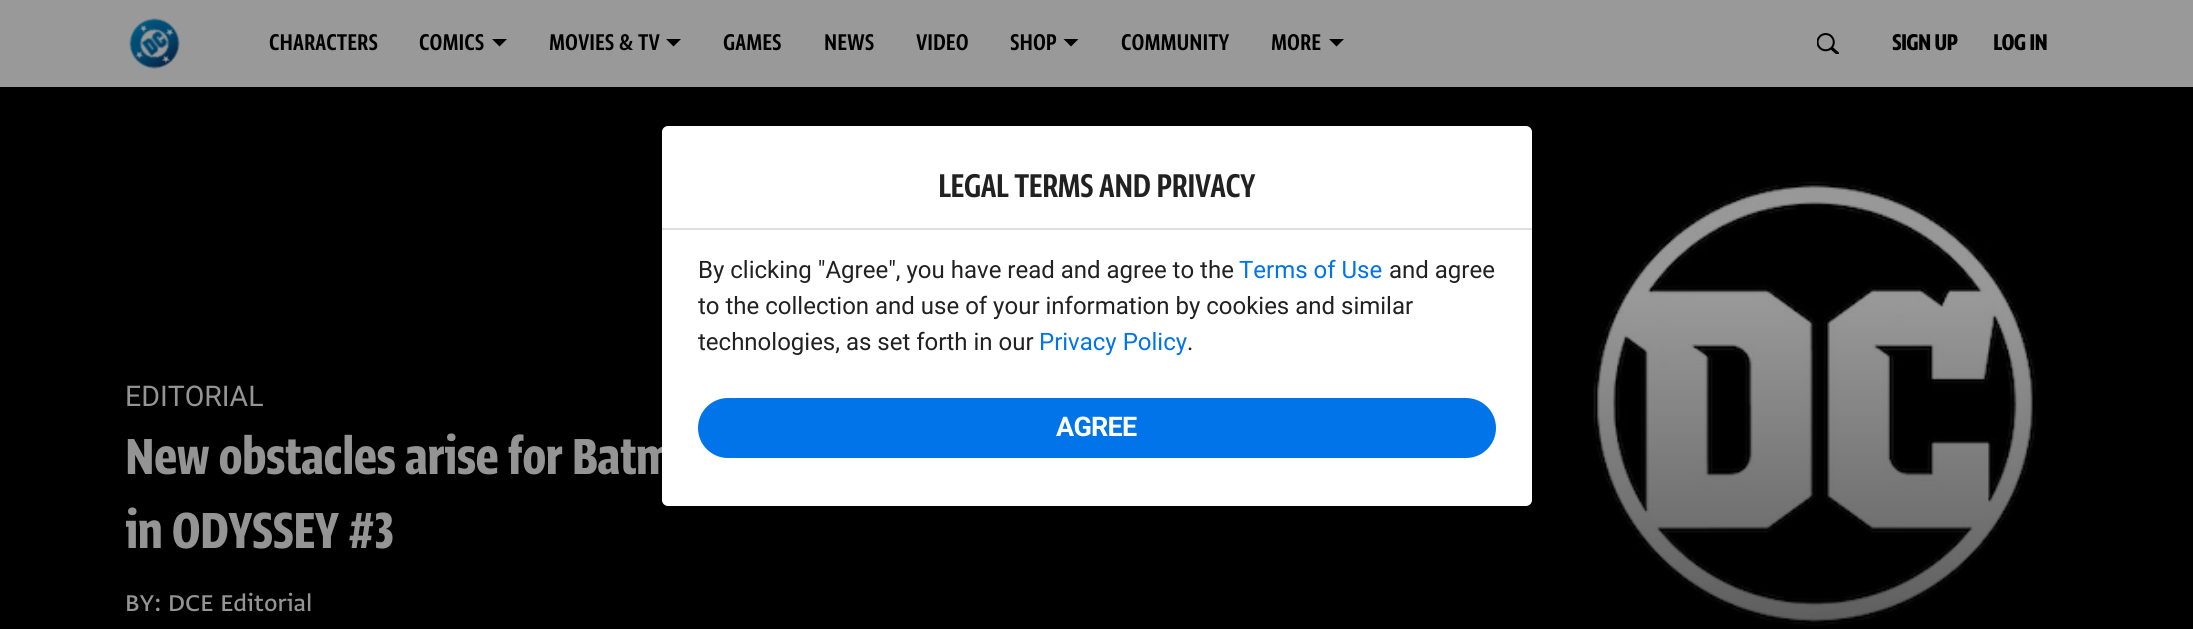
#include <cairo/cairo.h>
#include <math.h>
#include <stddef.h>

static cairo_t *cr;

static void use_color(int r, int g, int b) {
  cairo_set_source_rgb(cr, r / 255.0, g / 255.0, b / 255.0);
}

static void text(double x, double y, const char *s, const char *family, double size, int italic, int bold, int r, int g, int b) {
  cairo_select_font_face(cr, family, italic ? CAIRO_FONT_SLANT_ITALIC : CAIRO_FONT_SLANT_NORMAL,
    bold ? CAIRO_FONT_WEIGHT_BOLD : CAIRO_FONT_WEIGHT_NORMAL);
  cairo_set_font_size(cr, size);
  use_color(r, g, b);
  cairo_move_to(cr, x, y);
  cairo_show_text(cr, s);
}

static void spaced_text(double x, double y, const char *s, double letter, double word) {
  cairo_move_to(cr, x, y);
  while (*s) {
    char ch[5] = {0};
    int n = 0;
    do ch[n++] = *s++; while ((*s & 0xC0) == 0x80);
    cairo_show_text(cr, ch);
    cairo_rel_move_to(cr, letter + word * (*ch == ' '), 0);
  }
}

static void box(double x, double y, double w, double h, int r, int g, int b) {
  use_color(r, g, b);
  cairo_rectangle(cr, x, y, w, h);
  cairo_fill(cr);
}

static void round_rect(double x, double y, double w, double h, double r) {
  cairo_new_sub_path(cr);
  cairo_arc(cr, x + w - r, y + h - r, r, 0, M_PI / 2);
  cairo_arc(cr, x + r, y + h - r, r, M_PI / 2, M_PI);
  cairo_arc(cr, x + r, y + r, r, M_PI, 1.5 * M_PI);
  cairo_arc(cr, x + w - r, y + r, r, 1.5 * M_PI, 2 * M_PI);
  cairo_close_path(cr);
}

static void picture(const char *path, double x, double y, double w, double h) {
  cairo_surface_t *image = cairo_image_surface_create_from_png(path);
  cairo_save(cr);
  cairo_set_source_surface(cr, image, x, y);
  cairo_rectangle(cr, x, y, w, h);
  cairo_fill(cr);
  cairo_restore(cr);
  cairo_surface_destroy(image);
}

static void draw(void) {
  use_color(153, 153, 153);
  cairo_paint(cr);
  picture("img_01.png", 129, 18, 51, 51);
  use_color(0, 0, 0);
  cairo_new_path(cr);
  cairo_move_to(cr, 492, 39);
  cairo_line_to(cr, 507, 39);
  cairo_line_to(cr, 499.5, 46.5);
  cairo_close_path(cr);
  cairo_fill(cr);
  cairo_new_path(cr);
  cairo_move_to(cr, 666, 39);
  cairo_line_to(cr, 681, 39);
  cairo_line_to(cr, 673.5, 46.5);
  cairo_close_path(cr);
  cairo_fill(cr);
  cairo_new_path(cr);
  cairo_move_to(cr, 1063.5, 39);
  cairo_line_to(cr, 1078.5, 39);
  cairo_line_to(cr, 1071, 46.5);
  cairo_close_path(cr);
  cairo_fill(cr);
  cairo_new_path(cr);
  cairo_move_to(cr, 1329, 39);
  cairo_line_to(cr, 1344, 39);
  cairo_line_to(cr, 1336.5, 46.5);
  cairo_close_path(cr);
  cairo_fill(cr);
  picture("img_02.png", 1817, 33, 22, 21);
  picture("img_03.png", 0, 87, 2193, 542);
  text(269, 50, "CHARACTERS", "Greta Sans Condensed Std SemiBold", 27, 0, 0, 0, 0, 0);
  text(419, 50, "COMICS", "Greta Sans Condensed Std SemiBold", 27, 0, 0, 0, 0, 0);
  text(549, 50, "MOVIES & TV", "Greta Sans Condensed Std SemiBold", 27, 0, 0, 0, 0, 0);
  text(723, 50, "GAMES", "Greta Sans Condensed Std SemiBold", 27, 0, 0, 0, 0, 0);
  text(824, 50, "NEWS", "Greta Sans Condensed Std SemiBold", 27, 0, 0, 0, 0, 0);
  text(916, 50, "VIDEO", "Greta Sans Condensed Std SemiBold", 27, 0, 0, 0, 0, 0);
  text(1010, 50, "SHOP", "Greta Sans Condensed Std SemiBold", 27, 0, 0, 0, 0, 0);
  text(1121, 50, "COMMUNITY", "Greta Sans Condensed Std SemiBold", 27, 0, 0, 0, 0, 0);
  text(1271, 50, "MORE", "Greta Sans Condensed Std SemiBold", 27, 0, 0, 0, 0, 0);
  cairo_select_font_face(cr, "Greta Sans Condensed Std", CAIRO_FONT_SLANT_NORMAL, CAIRO_FONT_WEIGHT_BOLD);
  spaced_text(1892, 50, "SIGN UP", -0.75, 0);
  spaced_text(1993, 50, "LOG IN", -0.75, 0);
  text(125, 406, "EDITORIAL", "Roboto", 28.5, 0, 0, 148, 148, 148);
  cairo_select_font_face(cr, "Greta Sans Condensed Std", CAIRO_FONT_SLANT_NORMAL, CAIRO_FONT_WEIGHT_BOLD);
  cairo_set_font_size(cr, 60);
  spaced_text(125, 474, "New obstacles arise for Batm", -0.75, 0);
  spaced_text(125, 548, "in ODYSSEY #3", -0.75, 0);
  text(125, 611, "BY: DCE Editorial", "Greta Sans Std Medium", 27, 0, 0, 148, 148, 148);
  use_color(255, 255, 255);
  round_rect(662, 126, 870, 380, 6);
  cairo_fill(cr);
  box(662, 228, 870, 2, 223, 223, 223);
  cairo_select_font_face(cr, "Greta Sans Condensed Std SemiBold", CAIRO_FONT_SLANT_NORMAL, CAIRO_FONT_WEIGHT_NORMAL);
  cairo_set_font_size(cr, 39);
  use_color(33, 33, 33);
  spaced_text(938, 197, "LEGAL TERMS AND PRIVACY", -0.75, 0);
  text(698, 278, "By clicking \"Agree\", you have read and agree to the", "Roboto", 24, 0, 0, 33, 33, 33);
  text(1239, 278, "Terms of Use", "Roboto", 24, 0, 0, 0, 116, 232);
  text(1389, 278, "and agree", "Roboto", 24, 0, 0, 33, 33, 33);
  text(698, 314, "to the collection and use of your information by cookies and similar", "Roboto", 24, 0, 0, 33, 33, 33);
  text(698, 350, "technologies, as set forth in our", "Roboto", 24, 0, 0, 33, 33, 33);
  text(1039, 350, "Privacy Policy", "Roboto", 24, 0, 0, 0, 116, 232);
  text(1187, 350, ".", "Roboto", 24, 0, 0, 33, 33, 33);
  use_color(0, 116, 232);
  round_rect(698, 398, 798, 60, 30);
  cairo_fill(cr);
  cairo_select_font_face(cr, "Roboto", CAIRO_FONT_SLANT_NORMAL, CAIRO_FONT_WEIGHT_BOLD);
  cairo_set_font_size(cr, 27);
  use_color(255, 255, 255);
  spaced_text(1056, 436, "AGREE", -0.75, 0);
}

int main(void) {
  cairo_surface_t *surface = cairo_image_surface_create(CAIRO_FORMAT_RGB24, 2193, 629);
  cr = cairo_create(surface);
  cairo_font_options_t *options = cairo_font_options_create();
  cairo_font_options_set_hint_metrics(options, CAIRO_HINT_METRICS_OFF);
  cairo_font_options_set_hint_style(options, CAIRO_HINT_STYLE_NONE);
  cairo_set_font_options(cr, options);
  cairo_set_miter_limit(cr, 4);
  draw();
  cairo_surface_write_to_png(surface, "out.png");
  cairo_font_options_destroy(options);
  cairo_destroy(cr);
  cairo_surface_destroy(surface);
  return 0;
}
